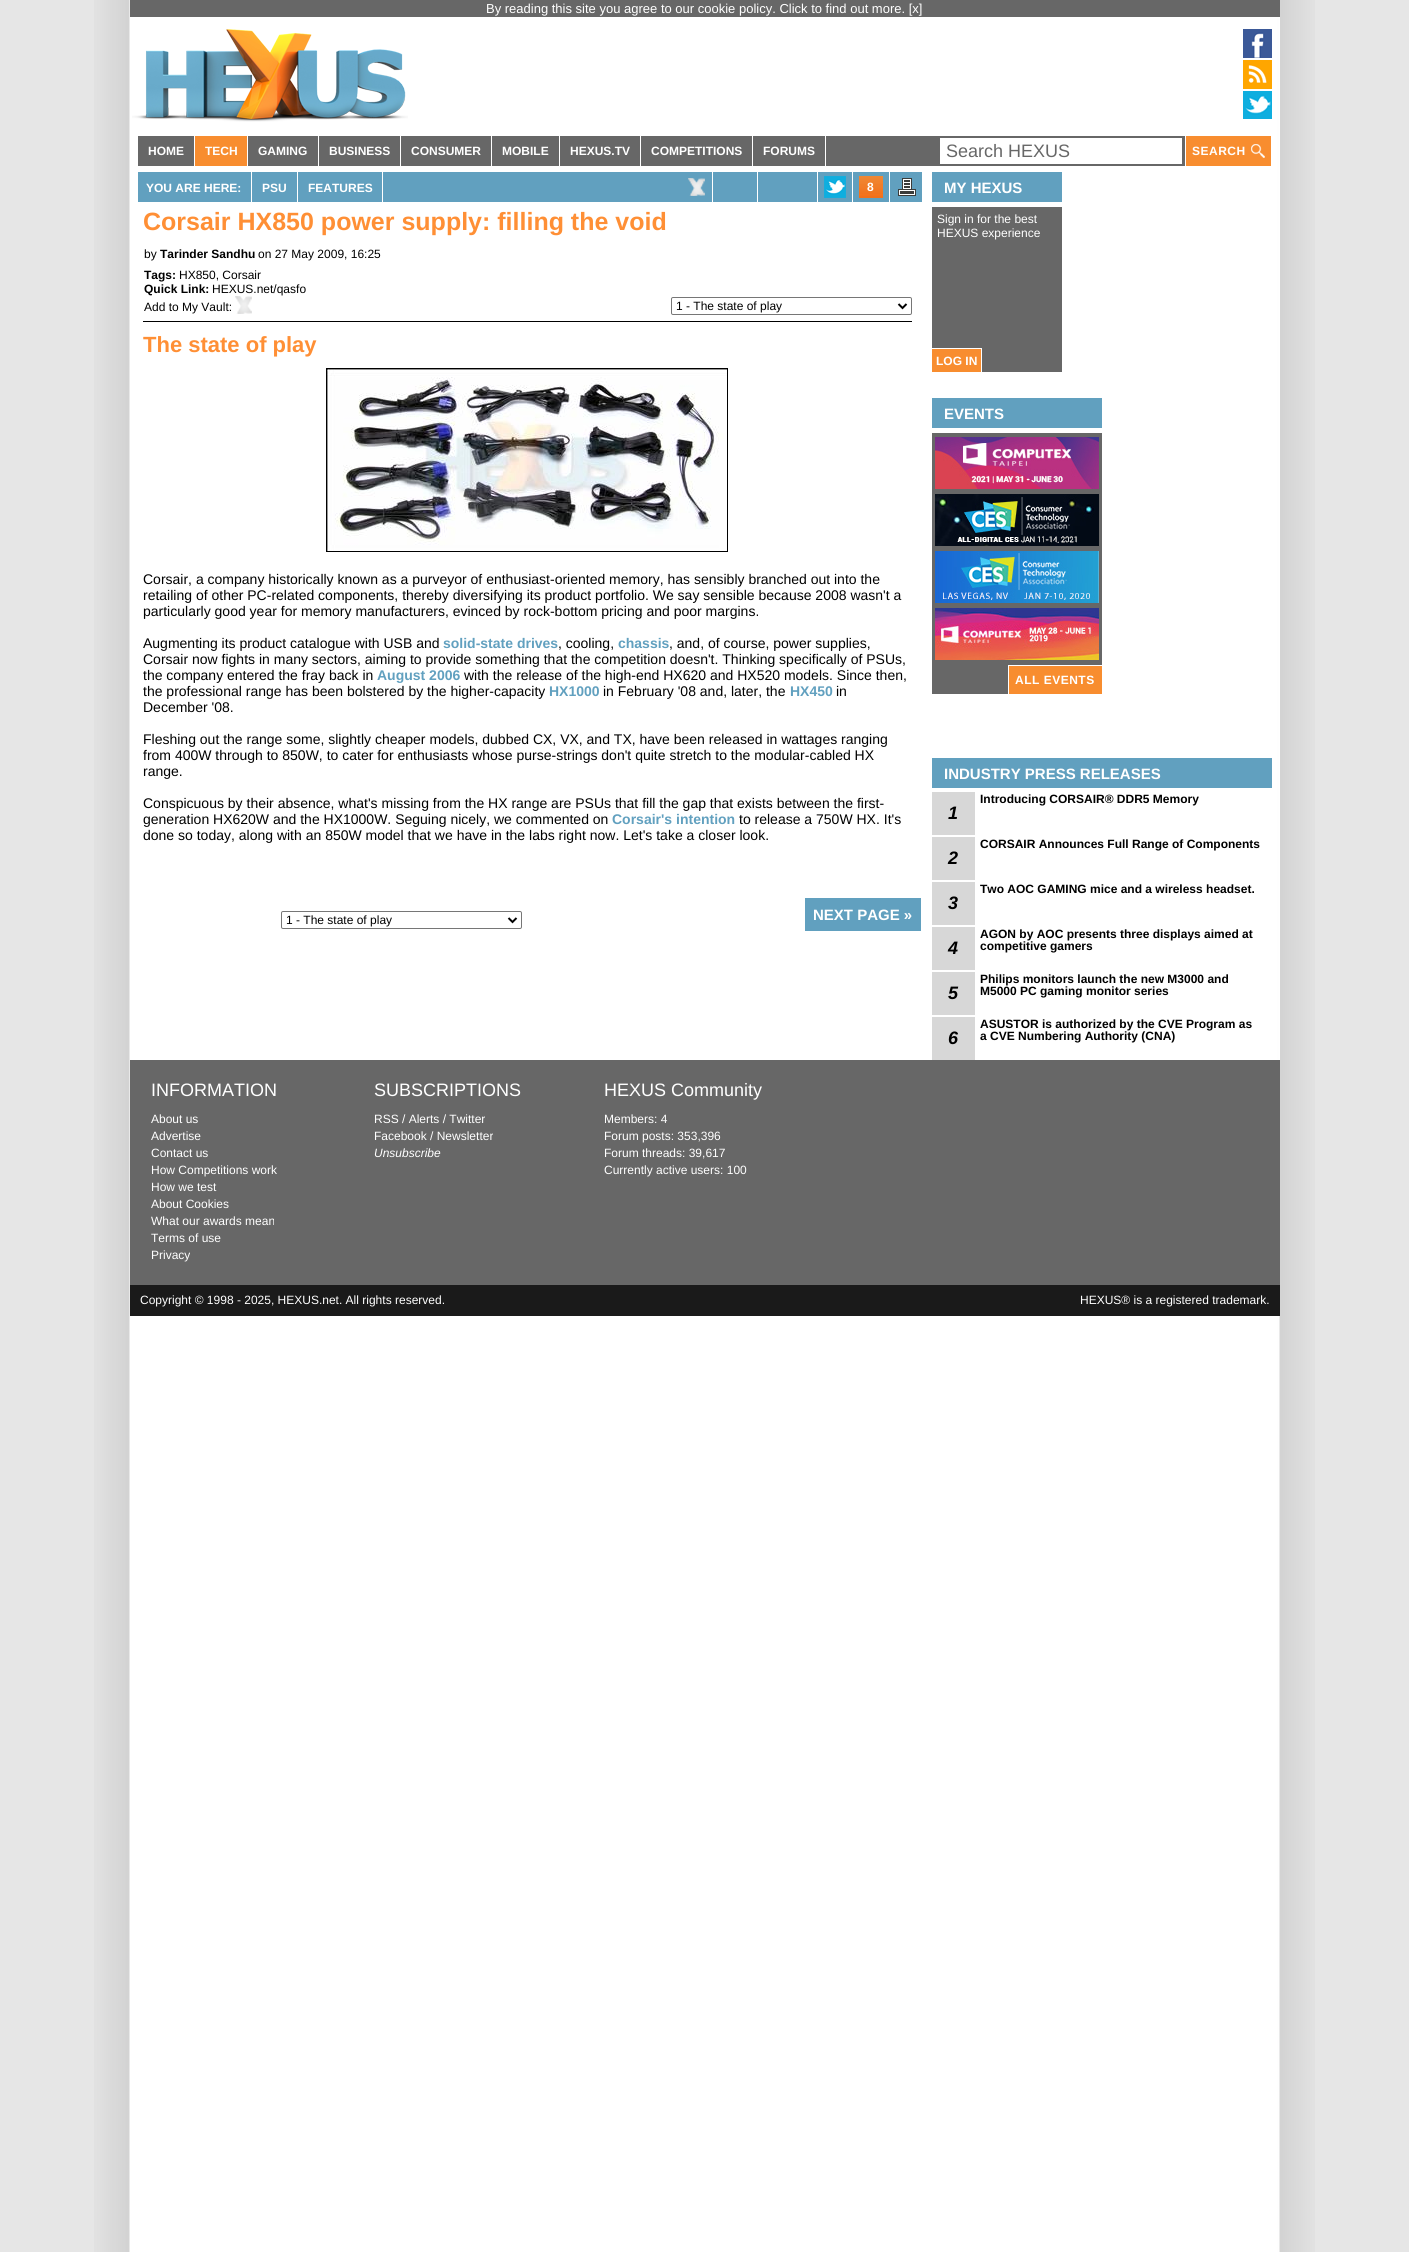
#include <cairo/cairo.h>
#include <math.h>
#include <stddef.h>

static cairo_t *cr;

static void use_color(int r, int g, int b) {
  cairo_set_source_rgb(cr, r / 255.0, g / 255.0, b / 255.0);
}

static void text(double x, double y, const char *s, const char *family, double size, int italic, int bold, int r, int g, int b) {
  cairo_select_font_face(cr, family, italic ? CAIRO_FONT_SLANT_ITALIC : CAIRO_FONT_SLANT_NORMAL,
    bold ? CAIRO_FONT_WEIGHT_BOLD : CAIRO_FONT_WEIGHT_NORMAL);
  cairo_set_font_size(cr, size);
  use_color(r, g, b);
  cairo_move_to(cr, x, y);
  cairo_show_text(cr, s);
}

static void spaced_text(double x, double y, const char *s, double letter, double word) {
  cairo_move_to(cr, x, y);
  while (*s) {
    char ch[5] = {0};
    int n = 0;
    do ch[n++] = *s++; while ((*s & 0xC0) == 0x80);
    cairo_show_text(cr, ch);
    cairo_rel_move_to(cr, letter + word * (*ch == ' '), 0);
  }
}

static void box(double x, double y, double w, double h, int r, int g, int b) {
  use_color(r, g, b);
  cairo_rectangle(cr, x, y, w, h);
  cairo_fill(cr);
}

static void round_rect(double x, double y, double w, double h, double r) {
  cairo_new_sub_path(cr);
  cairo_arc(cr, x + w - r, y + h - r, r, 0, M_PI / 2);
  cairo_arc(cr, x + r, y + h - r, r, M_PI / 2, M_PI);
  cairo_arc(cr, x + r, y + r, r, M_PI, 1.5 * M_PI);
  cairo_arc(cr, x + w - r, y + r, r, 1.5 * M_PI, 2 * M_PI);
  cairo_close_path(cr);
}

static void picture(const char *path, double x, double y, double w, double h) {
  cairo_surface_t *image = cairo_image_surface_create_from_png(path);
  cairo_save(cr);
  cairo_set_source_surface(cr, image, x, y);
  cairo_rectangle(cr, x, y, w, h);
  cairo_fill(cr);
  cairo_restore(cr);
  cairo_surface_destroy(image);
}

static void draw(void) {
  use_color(230, 230, 230);
  cairo_paint(cr);
  picture("img_01.png", 94, 0, 1221, 2252);
  box(1279, 17, 1, 1043, 255, 255, 255);
  box(130, 0, 1150, 17, 103, 103, 103);
  picture("img_02.png", 132, 29, 276, 93);
  picture("img_03.png", 1243, 29, 29, 29);
  picture("img_04.png", 1243, 60, 29, 29);
  picture("img_05.png", 1243, 91, 29, 28);
  box(138, 136, 1047, 30, 103, 103, 103);
  box(194, 136, 1, 30, 255, 255, 255);
  box(195, 136, 52, 30, 248, 141, 47);
  box(247, 136, 1, 30, 255, 255, 255);
  box(318, 136, 1, 30, 255, 255, 255);
  box(400, 136, 1, 30, 255, 255, 255);
  box(491, 136, 1, 30, 255, 255, 255);
  box(559, 136, 1, 30, 255, 255, 255);
  box(640, 136, 1, 30, 255, 255, 255);
  box(752, 136, 1, 30, 255, 255, 255);
  box(825, 136, 1, 30, 255, 255, 255);
  box(940, 138, 242, 26, 255, 255, 255);
  box(1186, 136, 85, 30, 248, 141, 47);
  picture("img_06.png", 1251, 144, 14, 14);
  box(138, 172, 784, 30, 97, 160, 191);
  box(251, 172, 1, 30, 255, 255, 255);
  box(297, 172, 1, 30, 255, 255, 255);
  box(382, 172, 1, 30, 255, 255, 255);
  picture("img_07.png", 688, 178, 17, 18);
  box(712, 172, 1, 30, 255, 255, 255);
  box(757, 172, 1, 30, 255, 255, 255);
  box(817, 172, 1, 30, 255, 255, 255);
  picture("img_08.png", 824, 176, 22, 22);
  box(852, 172, 1, 30, 255, 255, 255);
  picture("img_09.png", 859, 176, 24, 22);
  box(889, 172, 1, 30, 255, 255, 255);
  picture("img_10.png", 898, 178, 18, 18);
  box(143, 321, 769, 1, 0, 0, 0);
  picture("img_11.png", 235, 296, 17, 18);
  round_rect(671.5, 297.5, 240, 17, 1.5);
  use_color(118, 118, 118);
  cairo_set_line_width(cr, 1);
  cairo_stroke(cr);
  cairo_new_path(cr);
  cairo_move_to(cr, 898.5, 304);
  cairo_line_to(cr, 902.5, 308);
  cairo_line_to(cr, 906.5, 304);
  use_color(0, 0, 0);
  cairo_set_line_width(cr, 2);
  cairo_stroke(cr);
  cairo_rectangle(cr, 326.5, 368.5, 401, 183);
  cairo_set_line_width(cr, 1);
  cairo_stroke(cr);
  picture("img_12.png", 327, 369, 400, 182);
  round_rect(281.5, 911.5, 240, 17, 1.5);
  use_color(118, 118, 118);
  cairo_stroke(cr);
  cairo_new_path(cr);
  cairo_move_to(cr, 508.5, 918);
  cairo_line_to(cr, 512.5, 922);
  cairo_line_to(cr, 516.5, 918);
  use_color(0, 0, 0);
  cairo_set_line_width(cr, 2);
  cairo_stroke(cr);
  box(805, 898, 116, 33, 97, 160, 191);
  box(932, 172, 130, 30, 97, 160, 191);
  box(932, 207, 130, 165, 103, 103, 103);
  use_color(248, 141, 47);
  cairo_rectangle(cr, 931.5, 348.5, 50, 24);
  cairo_fill_preserve(cr);
  use_color(255, 255, 255);
  cairo_set_line_width(cr, 1);
  cairo_stroke(cr);
  box(932, 398, 170, 30, 97, 160, 191);
  box(932, 433, 170, 261, 103, 103, 103);
  picture("img_13.png", 935, 437, 164, 52);
  picture("img_14.png", 935, 494, 164, 52);
  picture("img_15.png", 935, 551, 164, 52);
  picture("img_16.png", 935, 608, 164, 52);
  box(1009, 666, 93, 28, 248, 141, 47);
  cairo_save(cr);
  cairo_rectangle(cr, 932, 398, 170, 296);
  cairo_clip(cr);
  cairo_rectangle(cr, 1008.5, 665.5, 94, 29);
  use_color(255, 255, 255);
  cairo_stroke(cr);
  cairo_restore(cr);
  box(932, 758, 340, 30, 97, 160, 191);
  box(932, 792, 43, 43, 215, 215, 215);
  box(932, 837, 43, 43, 215, 215, 215);
  box(932, 882, 43, 43, 215, 215, 215);
  box(932, 927, 43, 43, 215, 215, 215);
  box(932, 972, 43, 43, 215, 215, 215);
  box(932, 1017, 43, 43, 215, 215, 215);
  box(130, 1060, 1150, 225, 103, 103, 103);
  box(130, 1285, 1150, 31, 26, 26, 26);
  text(486, 13, "By reading this site you agree to our cookie policy. Click to find out more. [x]", "Liberation Sans", 13, 0, 0, 255, 255, 255);
  text(148, 155, "HOME", "Liberation Sans", 12, 0, 1, 255, 255, 255);
  text(205, 155, "TECH", "Liberation Sans", 12, 0, 1, 255, 255, 255);
  text(258, 155, "GAMING", "Liberation Sans", 12, 0, 1, 255, 255, 255);
  text(329, 155, "BUSINESS", "Liberation Sans", 12, 0, 1, 255, 255, 255);
  text(411, 155, "CONSUMER", "Liberation Sans", 12, 0, 1, 255, 255, 255);
  text(502, 155, "MOBILE", "Liberation Sans", 12, 0, 1, 255, 255, 255);
  text(570, 155, "HEXUS.TV", "Liberation Sans", 12, 0, 1, 255, 255, 255);
  text(651, 155, "COMPETITIONS", "Liberation Sans", 12, 0, 1, 255, 255, 255);
  text(763, 155, "FORUMS", "Liberation Sans", 12, 0, 1, 255, 255, 255);
  text(946, 157, "Search HEXUS", "Liberation Sans", 18, 0, 0, 103, 103, 103);
  cairo_select_font_face(cr, "Liberation Sans", CAIRO_FONT_SLANT_NORMAL, CAIRO_FONT_WEIGHT_BOLD);
  cairo_set_font_size(cr, 12);
  use_color(255, 255, 255);
  spaced_text(1192, 155, "SEARCH", 0.5, 0);
  text(146, 192, "YOU ARE HERE:", "Liberation Sans", 12, 0, 1, 255, 255, 255);
  text(262, 192, "PSU", "Liberation Sans", 12, 0, 1, 255, 255, 255);
  text(308, 192, "FEATURES", "Liberation Sans", 12, 0, 1, 255, 255, 255);
  text(867, 191, "8", "Liberation Sans", 12, 0, 1, 255, 255, 255);
  text(143, 230, "Corsair HX850 power supply: filling the void", "Liberation Sans", 25, 0, 1, 255, 143, 53);
  text(144, 258, "by", "Liberation Sans", 12, 0, 0, 0, 0, 0);
  text(160, 258, "Tarinder Sandhu", "Liberation Sans", 12, 0, 1, 0, 0, 0);
  text(258, 258, "on 27 May 2009, 16:25", "Liberation Sans", 12, 0, 0, 0, 0, 0);
  text(144, 279, "Tags:", "Liberation Sans", 12, 0, 1, 0, 0, 0);
  text(179, 279, "HX850, Corsair", "Liberation Sans", 12, 0, 0, 0, 0, 0);
  text(144, 293, "Quick Link:", "Liberation Sans", 12, 0, 1, 0, 0, 0);
  text(212, 293, "HEXUS.net/qasfo", "Liberation Sans", 12, 0, 0, 0, 0, 0);
  text(144, 311, "Add to My Vault:", "Liberation Sans", 12, 0, 0, 0, 0, 0);
  text(676, 310, "1 - The state of play", "Liberation Sans", 12, 0, 0, 0, 0, 0);
  text(143, 352, "The state of play", "Liberation Sans", 22, 0, 1, 255, 143, 53);
  text(143, 584, "Corsair, a company historically known as a purveyor of enthusiast-oriented memory, has sensibly branched out into the", "Liberation Sans", 14, 0, 0, 0, 0, 0);
  text(143, 600, "retailing of other PC-related components, thereby diversifying its product portfolio. We say sensible because 2008 wasn't a", "Liberation Sans", 14, 0, 0, 0, 0, 0);
  text(143, 616, "particularly good year for memory manufacturers, evinced by rock-bottom pricing and poor margins.", "Liberation Sans", 14, 0, 0, 0, 0, 0);
  text(143, 648, "Augmenting its product catalogue with USB and", "Liberation Sans", 14, 0, 0, 0, 0, 0);
  text(443, 648, "solid-state drives", "Liberation Sans", 14, 0, 1, 97, 160, 191);
  text(558, 648, ", cooling,", "Liberation Sans", 14, 0, 0, 0, 0, 0);
  text(618, 648, "chassis", "Liberation Sans", 14, 0, 1, 97, 160, 191);
  text(669, 648, ", and, of course, power supplies,", "Liberation Sans", 14, 0, 0, 0, 0, 0);
  text(143, 664, "Corsair now fights in many sectors, aiming to provide something that the competition doesn't. Thinking specifically of PSUs,", "Liberation Sans", 14, 0, 0, 0, 0, 0);
  text(143, 680, "the company entered the fray back in", "Liberation Sans", 14, 0, 0, 0, 0, 0);
  text(377, 680, "August 2006", "Liberation Sans", 14, 0, 1, 97, 160, 191);
  text(464, 680, "with the release of the high-end HX620 and HX520 models. Since then,", "Liberation Sans", 14, 0, 0, 0, 0, 0);
  text(143, 696, "the professional range has been bolstered by the higher-capacity", "Liberation Sans", 14, 0, 0, 0, 0, 0);
  text(549, 696, "HX1000", "Liberation Sans", 14, 0, 1, 97, 160, 191);
  text(603, 696, "in February '08 and, later, the", "Liberation Sans", 14, 0, 0, 0, 0, 0);
  text(790, 696, "HX450", "Liberation Sans", 14, 0, 1, 97, 160, 191);
  text(836, 696, "in", "Liberation Sans", 14, 0, 0, 0, 0, 0);
  text(143, 712, "December '08.", "Liberation Sans", 14, 0, 0, 0, 0, 0);
  text(143, 744, "Fleshing out the range some, slightly cheaper models, dubbed CX, VX, and TX, have been released in wattages ranging", "Liberation Sans", 14, 0, 0, 0, 0, 0);
  text(143, 760, "from 400W through to 850W, to cater for enthusiasts whose purse-strings don't quite stretch to the modular-cabled HX", "Liberation Sans", 14, 0, 0, 0, 0, 0);
  text(143, 776, "range.", "Liberation Sans", 14, 0, 0, 0, 0, 0);
  text(143, 808, "Conspicuous by their absence, what's missing from the HX range are PSUs that fill the gap that exists between the first-", "Liberation Sans", 14, 0, 0, 0, 0, 0);
  text(143, 824, "generation HX620W and the HX1000W. Seguing nicely, we commented on", "Liberation Sans", 14, 0, 0, 0, 0, 0);
  text(612, 824, "Corsair's intention", "Liberation Sans", 14, 0, 1, 97, 160, 191);
  text(739, 824, "to release a 750W HX. It's", "Liberation Sans", 14, 0, 0, 0, 0, 0);
  text(143, 840, "done so today, along with an 850W model that we have in the labs right now. Let's take a closer look.", "Liberation Sans", 14, 0, 0, 0, 0, 0);
  text(286, 924, "1 - The state of play", "Liberation Sans", 12, 0, 0, 0, 0, 0);
  text(813, 920, "NEXT PAGE »", "Liberation Sans", 15, 0, 1, 255, 255, 255);
  text(944, 193, "MY HEXUS", "Liberation Sans", 15, 0, 1, 255, 255, 255);
  text(937, 223, "Sign in for the best", "Liberation Sans", 12, 0, 0, 255, 255, 255);
  text(937, 237, "HEXUS experience", "Liberation Sans", 12, 0, 0, 255, 255, 255);
  text(936, 365, "LOG IN", "Liberation Sans", 12, 0, 1, 255, 255, 255);
  text(944, 419, "EVENTS", "Liberation Sans", 15, 0, 1, 255, 255, 255);
  cairo_set_font_size(cr, 12);
  spaced_text(1015, 684, "ALL EVENTS", 0.5, 0);
  text(944, 779, "INDUSTRY PRESS RELEASES", "Liberation Sans", 15, 0, 1, 255, 255, 255);
  text(980, 803, "Introducing CORSAIR® DDR5 Memory", "Liberation Sans", 12, 0, 1, 0, 0, 0);
  text(948, 819, "1", "Liberation Sans", 18, 1, 1, 0, 0, 0);
  text(980, 848, "CORSAIR Announces Full Range of Components", "Liberation Sans", 12, 0, 1, 0, 0, 0);
  text(948, 864, "2", "Liberation Sans", 18, 1, 1, 0, 0, 0);
  text(980, 893, "Two AOC GAMING mice and a wireless headset.", "Liberation Sans", 12, 0, 1, 0, 0, 0);
  text(948, 909, "3", "Liberation Sans", 18, 1, 1, 0, 0, 0);
  text(948, 954, "4", "Liberation Sans", 18, 1, 1, 0, 0, 0);
  text(980, 938, "AGON by AOC presents three displays aimed at", "Liberation Sans", 12, 0, 1, 0, 0, 0);
  text(980, 950, "competitive gamers", "Liberation Sans", 12, 0, 1, 0, 0, 0);
  text(948, 999, "5", "Liberation Sans", 18, 1, 1, 0, 0, 0);
  text(980, 983, "Philips monitors launch the new M3000 and", "Liberation Sans", 12, 0, 1, 0, 0, 0);
  text(980, 995, "M5000 PC gaming monitor series", "Liberation Sans", 12, 0, 1, 0, 0, 0);
  text(948, 1044, "6", "Liberation Sans", 18, 1, 1, 0, 0, 0);
  text(980, 1028, "ASUSTOR is authorized by the CVE Program as", "Liberation Sans", 12, 0, 1, 0, 0, 0);
  text(980, 1040, "a CVE Numbering Authority (CNA)", "Liberation Sans", 12, 0, 1, 0, 0, 0);
  text(151, 1096, "INFORMATION", "Liberation Sans", 18, 0, 0, 255, 255, 255);
  text(151, 1123, "About us", "Liberation Sans", 12, 0, 0, 255, 255, 255);
  text(151, 1140, "Advertise", "Liberation Sans", 12, 0, 0, 255, 255, 255);
  text(151, 1157, "Contact us", "Liberation Sans", 12, 0, 0, 255, 255, 255);
  text(151, 1174, "How Competitions work", "Liberation Sans", 12, 0, 0, 255, 255, 255);
  text(151, 1191, "How we test", "Liberation Sans", 12, 0, 0, 255, 255, 255);
  text(151, 1208, "About Cookies", "Liberation Sans", 12, 0, 0, 255, 255, 255);
  text(151, 1225, "What our awards mean", "Liberation Sans", 12, 0, 0, 255, 255, 255);
  text(151, 1242, "Terms of use", "Liberation Sans", 12, 0, 0, 255, 255, 255);
  text(151, 1259, "Privacy", "Liberation Sans", 12, 0, 0, 255, 255, 255);
  text(374, 1096, "SUBSCRIPTIONS", "Liberation Sans", 18, 0, 0, 255, 255, 255);
  text(374, 1123, "RSS / Alerts / Twitter", "Liberation Sans", 12, 0, 0, 255, 255, 255);
  text(374, 1140, "Facebook / Newsletter", "Liberation Sans", 12, 0, 0, 255, 255, 255);
  text(374, 1157, "Unsubscribe", "Liberation Sans", 12, 1, 0, 255, 255, 255);
  text(604, 1096, "HEXUS Community", "Liberation Sans", 18, 0, 0, 255, 255, 255);
  text(604, 1123, "Members: 4", "Liberation Sans", 12, 0, 0, 255, 255, 255);
  text(604, 1140, "Forum posts: 353,396", "Liberation Sans", 12, 0, 0, 255, 255, 255);
  text(604, 1157, "Forum threads: 39,617", "Liberation Sans", 12, 0, 0, 255, 255, 255);
  text(604, 1174, "Currently active users: 100", "Liberation Sans", 12, 0, 0, 255, 255, 255);
  text(140, 1304, "Copyright © 1998 - 2025, HEXUS.net. All rights reserved.", "Liberation Sans", 12, 0, 0, 255, 255, 255);
  text(1080, 1304, "HEXUS® is a registered trademark.", "Liberation Sans", 12, 0, 0, 255, 255, 255);
}

int main(void) {
  cairo_surface_t *surface = cairo_image_surface_create(CAIRO_FORMAT_RGB24, 1409, 2252);
  cr = cairo_create(surface);
  cairo_font_options_t *options = cairo_font_options_create();
  cairo_font_options_set_hint_metrics(options, CAIRO_HINT_METRICS_OFF);
  cairo_font_options_set_hint_style(options, CAIRO_HINT_STYLE_NONE);
  cairo_set_font_options(cr, options);
  cairo_set_miter_limit(cr, 4);
  draw();
  cairo_surface_write_to_png(surface, "out.png");
  cairo_font_options_destroy(options);
  cairo_destroy(cr);
  cairo_surface_destroy(surface);
  return 0;
}
